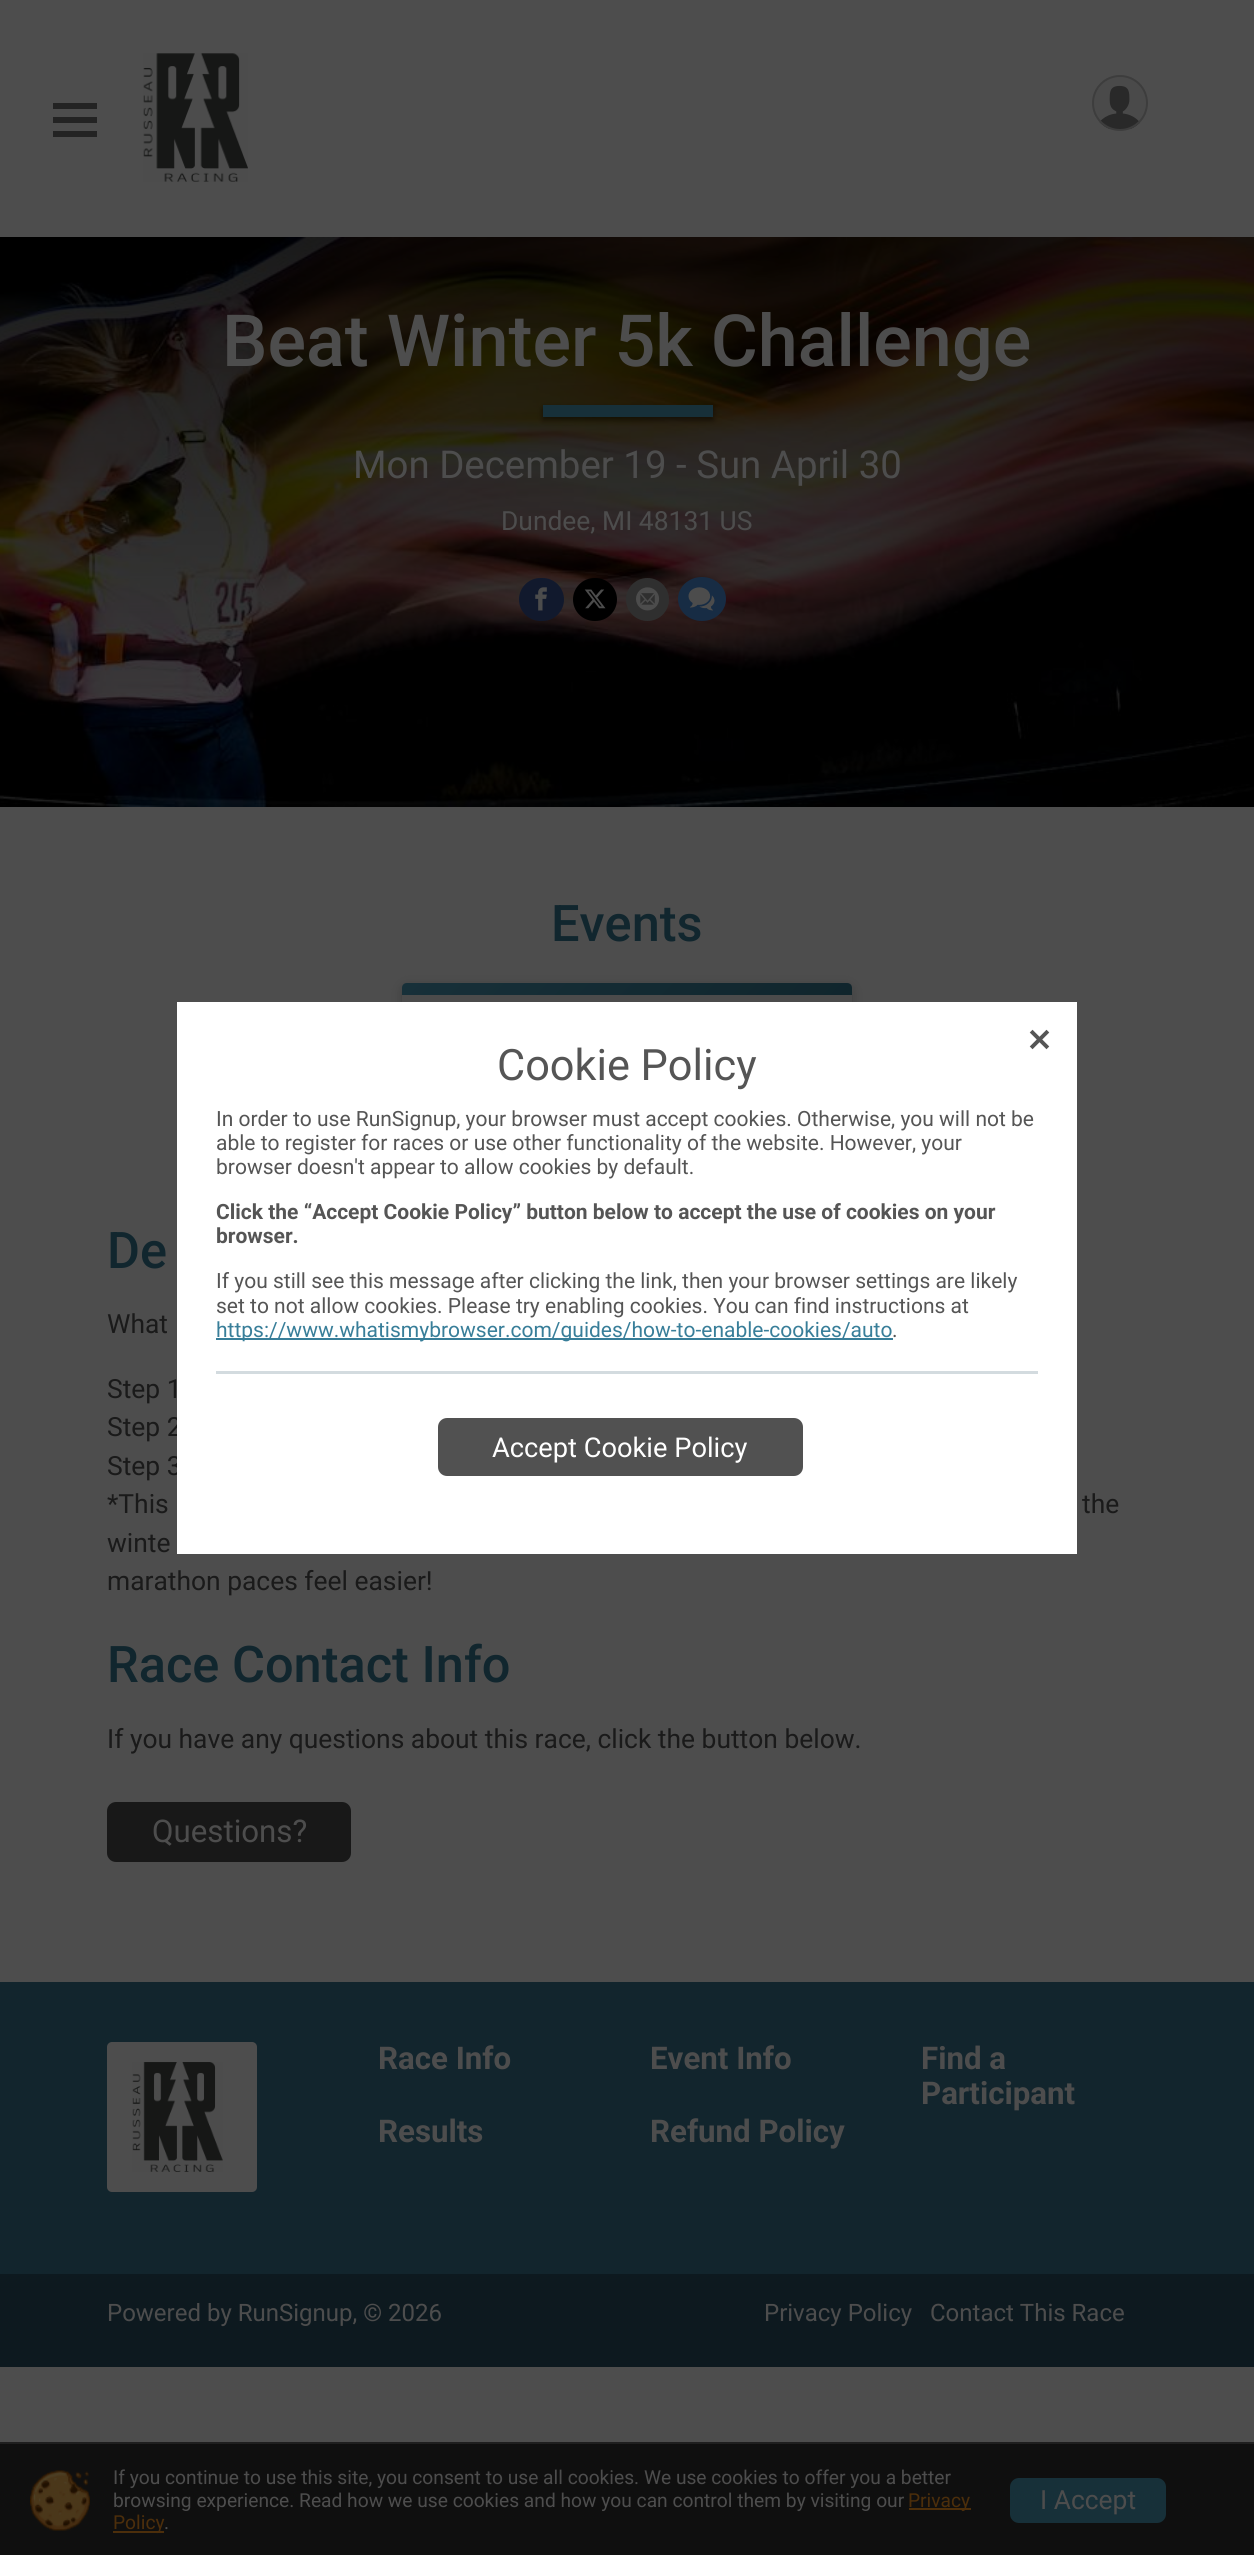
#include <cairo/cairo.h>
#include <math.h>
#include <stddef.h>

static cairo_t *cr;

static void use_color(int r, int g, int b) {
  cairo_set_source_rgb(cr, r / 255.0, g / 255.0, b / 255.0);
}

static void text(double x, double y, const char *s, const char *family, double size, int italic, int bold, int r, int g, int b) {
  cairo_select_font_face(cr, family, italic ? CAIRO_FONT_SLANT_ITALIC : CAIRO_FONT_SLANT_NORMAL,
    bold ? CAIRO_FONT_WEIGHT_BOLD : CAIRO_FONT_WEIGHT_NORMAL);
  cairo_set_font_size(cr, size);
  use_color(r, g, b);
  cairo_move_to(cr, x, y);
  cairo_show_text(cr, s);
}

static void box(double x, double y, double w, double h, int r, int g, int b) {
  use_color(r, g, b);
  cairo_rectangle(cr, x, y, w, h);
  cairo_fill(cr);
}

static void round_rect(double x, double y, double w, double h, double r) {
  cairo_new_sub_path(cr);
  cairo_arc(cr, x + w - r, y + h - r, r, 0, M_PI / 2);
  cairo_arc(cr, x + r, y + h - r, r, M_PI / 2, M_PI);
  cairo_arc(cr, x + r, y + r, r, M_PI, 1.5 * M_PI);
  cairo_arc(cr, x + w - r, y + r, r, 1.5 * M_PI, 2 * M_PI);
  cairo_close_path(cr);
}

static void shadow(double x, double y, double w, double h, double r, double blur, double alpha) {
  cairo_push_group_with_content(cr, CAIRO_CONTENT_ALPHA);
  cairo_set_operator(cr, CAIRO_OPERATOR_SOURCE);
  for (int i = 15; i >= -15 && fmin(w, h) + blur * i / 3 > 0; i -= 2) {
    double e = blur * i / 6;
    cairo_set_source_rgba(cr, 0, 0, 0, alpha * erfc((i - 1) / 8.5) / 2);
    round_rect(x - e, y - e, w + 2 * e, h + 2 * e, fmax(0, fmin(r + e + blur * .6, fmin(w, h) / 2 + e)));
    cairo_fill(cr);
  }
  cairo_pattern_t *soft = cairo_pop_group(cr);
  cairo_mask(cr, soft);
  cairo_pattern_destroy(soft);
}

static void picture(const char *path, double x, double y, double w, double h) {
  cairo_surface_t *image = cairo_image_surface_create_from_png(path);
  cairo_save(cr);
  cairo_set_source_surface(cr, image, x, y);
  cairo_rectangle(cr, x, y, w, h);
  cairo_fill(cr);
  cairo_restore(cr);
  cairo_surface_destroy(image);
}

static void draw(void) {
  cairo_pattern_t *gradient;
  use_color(77, 77, 77);
  cairo_paint(cr);
  use_color(35, 35, 35);
  cairo_new_path(cr);
  cairo_move_to(cr, 97, 103);
  cairo_line_to(cr, 97, 109);
  cairo_line_to(cr, 53, 109);
  cairo_line_to(cr, 53, 103);
  cairo_close_path(cr);
  cairo_move_to(cr, 97, 117);
  cairo_line_to(cr, 97, 123);
  cairo_line_to(cr, 53, 123);
  cairo_line_to(cr, 53, 117);
  cairo_close_path(cr);
  cairo_move_to(cr, 97, 131);
  cairo_line_to(cr, 97, 137);
  cairo_line_to(cr, 53, 137);
  cairo_line_to(cr, 53, 131);
  cairo_close_path(cr);
  cairo_fill(cr);
  picture("img_01.png", 143, 53, 105, 129);
  picture("img_02.png", 1094, 77, 52, 52);
  cairo_arc(cr, 1120, 103, 27, 0, 2 * M_PI);
  use_color(61, 61, 61);
  cairo_stroke(cr);
  picture("img_03.png", 0, 237, 1254, 570);
  use_color(0, 0, 0);
  shadow(543, 408, 170, 12, 0, 3, 0.5);
  box(543, 405, 170, 12, 23, 48, 57);
  use_color(17, 25, 45);
  round_rect(519, 578, 45, 43, 21.5);
  cairo_fill(cr);
  picture("img_04.png", 535, 587, 12, 24);
  use_color(0, 0, 0);
  round_rect(573, 578, 44, 43, 21.5);
  cairo_fill(cr);
  picture("img_05.png", 584, 589, 22, 20);
  use_color(47, 47, 47);
  cairo_arc(cr, 647.5, 599.5, 21.5, 0, 2 * M_PI);
  cairo_fill(cr);
  picture("img_06.png", 636, 587, 24, 24);
  use_color(23, 44, 68);
  cairo_new_path(cr);
  cairo_move_to(cr, 702, 577);
  cairo_curve_to(cr, 715.5, 577, 726, 587, 726, 599);
  cairo_curve_to(cr, 726, 611, 715.5, 621, 702, 621);
  cairo_curve_to(cr, 688.5, 621, 678, 611, 678, 599);
  cairo_curve_to(cr, 678, 587, 688.5, 577, 702, 577);
  cairo_close_path(cr);
  cairo_fill(cr);
  picture("img_07.png", 688, 587, 27, 24);
  use_color(0, 0, 0);
  shadow(402, 986, 450, 196, 5, 6, 0.2);
  use_color(75, 75, 75);
  round_rect(402, 983, 450, 196, 5);
  cairo_fill(cr);
  gradient = cairo_pattern_create_linear(743, 1104, 512, 873);
  cairo_pattern_add_color_stop_rgba(gradient, 0, 0.063, 0.145, 0.173, 1);
  cairo_pattern_add_color_stop_rgba(gradient, 1, 0.09, 0.188, 0.224, 1);
  cairo_set_source(cr, gradient);
  cairo_pattern_destroy(gradient);
  cairo_new_path(cr);
  cairo_move_to(cr, 407, 983);
  cairo_line_to(cr, 847, 983);
  cairo_curve_to(cr, 850, 983, 852, 985, 852, 988);
  cairo_line_to(cr, 852, 995);
  cairo_line_to(cr, 402, 995);
  cairo_line_to(cr, 402, 988);
  cairo_curve_to(cr, 402, 985, 404, 983, 407, 983);
  cairo_close_path(cr);
  cairo_fill(cr);
  use_color(24, 24, 24);
  round_rect(107, 1802, 244, 60, 9);
  cairo_fill(cr);
  box(0, 2274, 1254, 93, 13, 25, 31);
  box(0, 1982, 1254, 292, 18, 37, 45);
  use_color(77, 77, 77);
  round_rect(107, 2042, 150, 150, 5);
  cairo_fill(cr);
  picture("img_08.png", 132, 2062, 91, 110);
  box(0, 2444, 1254, 111, 15, 15, 15);
  box(0, 2442, 1254, 2, 31, 31, 31);
  picture("img_10.png", 30, 2470, 60, 61);
  box(909, 2508, 62, 2, 76, 46, 11);
  box(113, 2531, 51, 2, 76, 46, 11);
  use_color(23, 48, 57);
  round_rect(1010, 2478, 156, 45, 9);
  cairo_fill(cr);
  text(222, 366, "Beat Winter 5k Challenge", "Roboto Medium", 72, 0, 0, 77, 77, 77);
  text(353, 478, "Mon December 19 - Sun April 30", "Roboto", 38.4, 0, 0, 77, 77, 77);
  text(501, 530, "Dundee, MI 48131 US", "Roboto", 26.4, 0, 0, 77, 77, 77);
  text(551, 941, "Events", "Roboto Medium", 50.5, 0, 0, 17, 38, 46);
  text(107, 1268, "De", "Roboto Medium", 50.5, 0, 0, 17, 38, 46);
  text(107, 1333, "What", "Roboto", 26.4, 0, 0, 26, 26, 26);
  text(107, 1398, "Step 1", "Roboto", 26.4, 0, 0, 26, 26, 26);
  text(107, 1436, "Step 2", "Roboto", 26.4, 0, 0, 26, 26, 26);
  text(107, 1475, "Step 3", "Roboto", 26.4, 0, 0, 26, 26, 26);
  text(107, 1513, "*This", "Roboto", 26.4, 0, 0, 26, 26, 26);
  text(1082, 1513, "the", "Roboto", 26.4, 0, 0, 26, 26, 26);
  text(107, 1552, "winte", "Roboto", 26.4, 0, 0, 26, 26, 26);
  text(107, 1590, "marathon paces feel easier!", "Roboto", 26.4, 0, 0, 26, 26, 26);
  text(107, 1682, "Race Contact Info", "Roboto Medium", 50.5, 0, 0, 17, 38, 46);
  text(107, 1748, "If you have any questions about this race, click the button below.", "Roboto", 26.4, 0, 0, 26, 26, 26);
  text(152, 1842, "Questions?", "Roboto", 31.25, 0, 0, 77, 77, 77);
  text(378, 2069, "Race Info", "Roboto", 31.25, 0, 1, 77, 77, 77);
  text(378, 2142, "Results", "Roboto", 31.25, 0, 1, 77, 77, 77);
  text(650, 2069, "Event Info", "Roboto", 31.25, 0, 1, 77, 77, 77);
  text(650, 2142, "Refund Policy", "Roboto", 31.25, 0, 1, 77, 77, 77);
  text(921, 2069, "Find a", "Roboto", 31.25, 0, 1, 77, 77, 77);
  text(921, 2104, "Participant", "Roboto", 31.25, 0, 1, 77, 77, 77);
  text(107, 2321, "Powered by RunSignup, © 2026", "Roboto", 24, 0, 0, 77, 77, 77);
  text(764, 2321, "Privacy Policy", "Roboto", 24, 0, 0, 77, 77, 77);
  text(930, 2321, "Contact This Race", "Roboto", 24, 0, 0, 77, 77, 77);
  cairo_rectangle(cr, 178, 1003, 898, 550);
  use_color(255, 255, 255);
  cairo_stroke(cr);
  box(179, 1004, 896, 548, 255, 255, 255);
  picture("img_09.png", 1029, 1029, 21, 21);
  text(497, 1080, "Cookie Policy", "Roboto", 43.25, 0, 0, 85, 85, 85);
  text(216, 1126, "In order to use RunSignup, your browser must accept cookies. Otherwise, you will not be", "Roboto", 21, 0, 0, 85, 85, 85);
  text(216, 1150, "able to register for races or use other functionality of the website. However, your", "Roboto", 21, 0, 0, 85, 85, 85);
  text(216, 1174, "browser doesn't appear to allow cookies by default.", "Roboto", 21, 0, 0, 85, 85, 85);
  text(216, 1219, "Click the “Accept Cookie Policy” button below to accept the use of cookies on your", "Roboto", 21, 0, 1, 85, 85, 85);
  text(216, 1243, "browser.", "Roboto", 21, 0, 1, 85, 85, 85);
  text(216, 1288, "If you still see this message after clicking the link, then your browser settings are likely", "Roboto", 21, 0, 0, 85, 85, 85);
  text(216, 1313, "set to not allow cookies. Please try enabling cookies. You can find instructions at", "Roboto", 21, 0, 0, 85, 85, 85);
  box(216, 1338, 677, 2, 56, 126, 153);
  text(216, 1337, "https://www.whatismybrowser.com/guides/how-to-enable-cookies/auto", "Roboto", 21, 0, 0, 56, 126, 153);
  text(892, 1337, ".", "Roboto", 21, 0, 0, 85, 85, 85);
  box(216, 1371, 822, 3, 211, 219, 223);
  use_color(81, 81, 81);
  round_rect(438, 1418, 365, 58, 9);
  cairo_fill(cr);
  text(492, 1457, "Accept Cookie Policy", "Roboto", 27.25, 0, 0, 255, 255, 255);
  text(113, 2484, "If you continue to use this site, you consent to use all cookies. We use cookies to offer you a better", "Roboto", 19.2, 0, 0, 77, 77, 77);
  text(113, 2507, "browsing experience. Read how we use cookies and how you can control them by visiting our", "Roboto", 19.2, 0, 0, 77, 77, 77);
  text(908, 2507, "Privacy", "Roboto", 19.2, 0, 0, 76, 46, 11);
  text(113, 2529, "Policy", "Roboto", 19.2, 0, 0, 76, 46, 11);
  text(164, 2529, ".", "Roboto", 19.2, 0, 0, 77, 77, 77);
  text(1040, 2509, "I Accept", "Roboto", 26.4, 0, 0, 77, 77, 77);
}

int main(void) {
  cairo_surface_t *surface = cairo_image_surface_create(CAIRO_FORMAT_RGB24, 1254, 2555);
  cr = cairo_create(surface);
  cairo_font_options_t *options = cairo_font_options_create();
  cairo_font_options_set_hint_metrics(options, CAIRO_HINT_METRICS_OFF);
  cairo_font_options_set_hint_style(options, CAIRO_HINT_STYLE_NONE);
  cairo_set_font_options(cr, options);
  cairo_set_miter_limit(cr, 4);
  draw();
  cairo_surface_write_to_png(surface, "out.png");
  cairo_font_options_destroy(options);
  cairo_destroy(cr);
  cairo_surface_destroy(surface);
  return 0;
}
